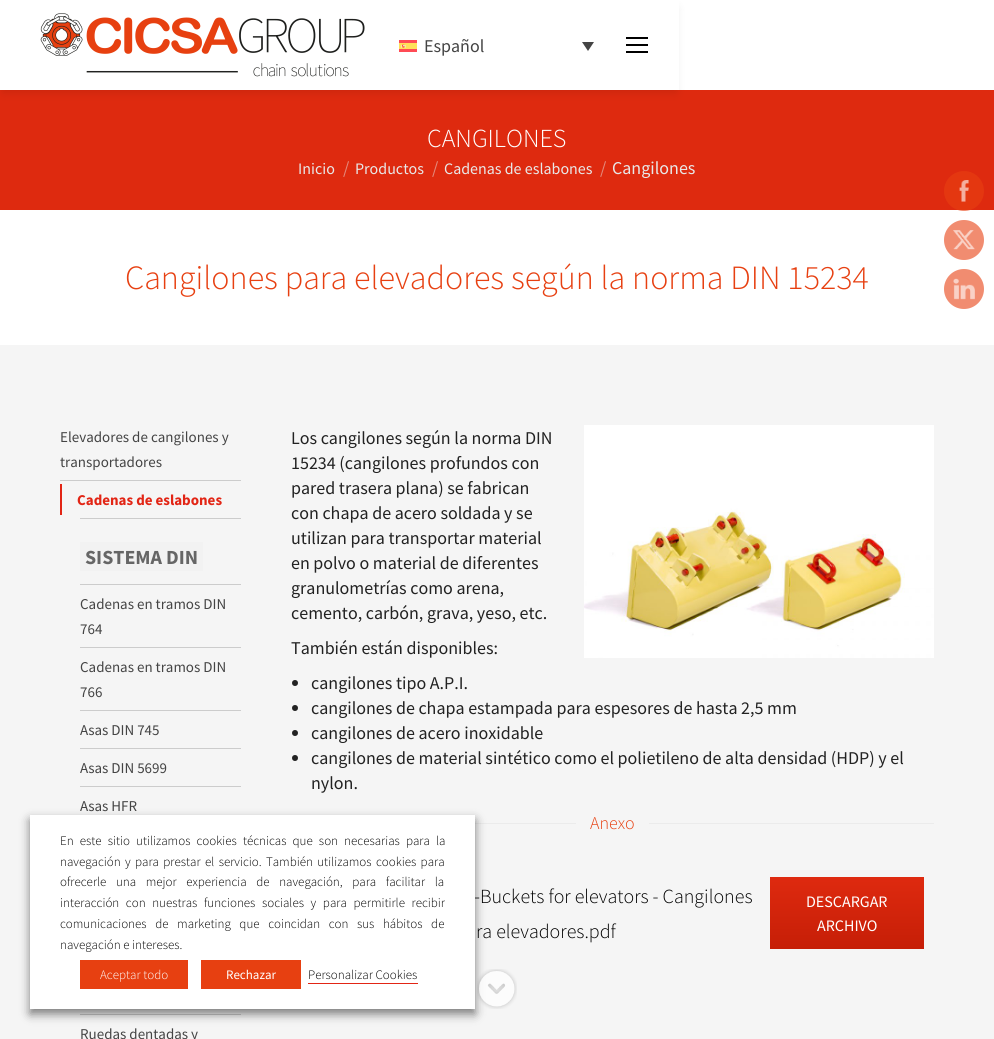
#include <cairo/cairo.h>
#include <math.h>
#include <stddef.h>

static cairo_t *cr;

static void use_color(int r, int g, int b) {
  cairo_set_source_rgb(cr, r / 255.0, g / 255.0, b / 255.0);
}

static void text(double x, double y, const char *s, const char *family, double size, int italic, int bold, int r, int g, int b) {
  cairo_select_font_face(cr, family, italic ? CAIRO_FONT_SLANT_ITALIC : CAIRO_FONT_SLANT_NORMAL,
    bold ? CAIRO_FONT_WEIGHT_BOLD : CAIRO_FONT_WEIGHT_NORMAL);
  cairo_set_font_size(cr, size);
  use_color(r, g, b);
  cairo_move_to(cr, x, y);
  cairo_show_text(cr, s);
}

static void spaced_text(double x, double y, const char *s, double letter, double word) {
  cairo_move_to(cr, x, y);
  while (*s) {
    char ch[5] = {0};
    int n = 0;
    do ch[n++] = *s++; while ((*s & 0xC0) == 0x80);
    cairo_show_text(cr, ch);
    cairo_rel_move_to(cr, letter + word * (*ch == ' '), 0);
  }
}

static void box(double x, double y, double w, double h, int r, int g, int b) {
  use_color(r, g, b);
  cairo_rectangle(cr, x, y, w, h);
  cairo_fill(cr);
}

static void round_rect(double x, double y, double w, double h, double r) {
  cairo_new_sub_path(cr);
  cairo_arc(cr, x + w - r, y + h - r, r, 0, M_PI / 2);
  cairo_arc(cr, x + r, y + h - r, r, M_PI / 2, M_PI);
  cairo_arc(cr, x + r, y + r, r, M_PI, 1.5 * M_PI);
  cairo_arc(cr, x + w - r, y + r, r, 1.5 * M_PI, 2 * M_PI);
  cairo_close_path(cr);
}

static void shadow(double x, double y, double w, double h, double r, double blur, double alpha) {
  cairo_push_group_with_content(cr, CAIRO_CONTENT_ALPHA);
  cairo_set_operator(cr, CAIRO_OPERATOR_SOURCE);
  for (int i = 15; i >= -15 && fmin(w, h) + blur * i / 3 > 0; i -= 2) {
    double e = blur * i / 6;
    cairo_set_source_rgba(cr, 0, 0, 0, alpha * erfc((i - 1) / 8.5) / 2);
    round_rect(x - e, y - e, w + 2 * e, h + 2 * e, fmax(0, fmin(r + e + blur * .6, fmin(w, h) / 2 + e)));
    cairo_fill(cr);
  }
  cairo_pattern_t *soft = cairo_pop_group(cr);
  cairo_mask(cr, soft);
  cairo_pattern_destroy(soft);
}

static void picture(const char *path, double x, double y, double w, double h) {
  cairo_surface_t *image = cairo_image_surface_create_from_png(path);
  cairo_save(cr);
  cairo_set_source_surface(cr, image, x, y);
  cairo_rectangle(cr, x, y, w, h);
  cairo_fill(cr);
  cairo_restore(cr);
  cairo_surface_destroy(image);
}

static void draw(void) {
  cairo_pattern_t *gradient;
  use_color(255, 255, 255);
  cairo_paint(cr);
  box(0, 90, 994, 120, 222, 42, 15);
  cairo_save(cr);
  cairo_set_fill_rule(cr, CAIRO_FILL_RULE_EVEN_ODD);
  cairo_new_path(cr);
  cairo_move_to(cr, 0, 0);
  cairo_line_to(cr, 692, 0);
  cairo_line_to(cr, 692, 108);
  cairo_line_to(cr, 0, 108);
  cairo_close_path(cr);
  cairo_move_to(cr, 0, 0);
  cairo_line_to(cr, 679, 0);
  cairo_line_to(cr, 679, 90);
  cairo_line_to(cr, 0, 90);
  cairo_close_path(cr);
  cairo_clip(cr);
  use_color(0, 0, 0);
  shadow(3, 8, 673, 84, 0, 5, 0.1);
  cairo_restore(cr);
  picture("img_01.png", 40, 13, 325, 64);
  picture("img_02.png", 399, 40, 18, 12);
  use_color(68, 68, 68);
  cairo_new_path(cr);
  cairo_move_to(cr, 582, 42);
  cairo_line_to(cr, 594, 42);
  cairo_line_to(cr, 588, 51);
  cairo_close_path(cr);
  cairo_fill(cr);
  box(626, 37, 22, 2, 0, 0, 0);
  box(626, 44, 22, 2, 0, 0, 0);
  box(626, 51, 22, 2, 0, 0, 0);
  box(0, 345, 994, 694, 245, 245, 245);
  box(60, 480, 181, 1, 204, 204, 204);
  box(60, 484, 2, 31, 226, 37, 21);
  box(80, 518, 161, 1, 204, 204, 204);
  box(80, 542, 123, 29, 242, 242, 242);
  box(80, 584, 161, 1, 204, 204, 204);
  box(80, 647, 161, 1, 204, 204, 204);
  box(80, 710, 161, 1, 204, 204, 204);
  box(80, 748, 161, 1, 204, 204, 204);
  box(80, 786, 161, 1, 204, 204, 204);
  box(80, 1014, 161, 1, 204, 204, 204);
  picture("img_03.png", 584, 425, 350, 233);
  use_color(34, 34, 34);
  cairo_arc(cr, 295, 683, 3, 0, 2 * M_PI);
  cairo_fill(cr);
  cairo_arc(cr, 295, 708, 3, 0, 2 * M_PI);
  cairo_fill(cr);
  cairo_arc(cr, 295, 733, 3, 0, 2 * M_PI);
  cairo_fill(cr);
  cairo_arc(cr, 295, 758, 3, 0, 2 * M_PI);
  cairo_fill(cr);
  box(475, 823, 101, 1, 235, 235, 235);
  box(649, 823, 285, 1, 235, 235, 235);
  gradient = cairo_pattern_create_linear(847, 877, 847, 949);
  cairo_pattern_add_color_stop_rgba(gradient, 0, 0.871, 0.165, 0.059, 1);
  cairo_pattern_add_color_stop_rgba(gradient, 1, 0.776, 0.118, 0.027, 1);
  cairo_set_source(cr, gradient);
  cairo_pattern_destroy(gradient);
  cairo_rectangle(cr, 770, 877, 154, 72);
  cairo_fill(cr);
  cairo_set_source_rgba(cr, 0.906, 0.251, 0.067, 0.6);
  cairo_arc(cr, 964, 191, 20, 0, 2 * M_PI);
  cairo_fill(cr);
  picture("img_04.png", 959, 180, 10, 22);
  use_color(241, 140, 112);
  cairo_arc(cr, 964, 240, 20, 0, 2 * M_PI);
  cairo_fill(cr);
  picture("img_05.png", 953, 230, 22, 20);
  cairo_arc(cr, 964, 289, 20, 0, 2 * M_PI);
  cairo_fill(cr);
  picture("img_06.png", 953, 278, 22, 22);
  use_color(0, 0, 0);
  shadow(30, 820, 445, 194, 0, 5, 0.5);
  picture("img_07.png", 477, 969, 40, 40);
  text(424, 52, "Español", "Source Sans Pro", 18, 0, 0, 68, 68, 68);
  text(427, 147, "CANGILONES", "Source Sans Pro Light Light", 26, 0, 0, 255, 255, 255);
  text(298, 174, "Inicio", "Source Sans Pro", 16, 0, 0, 232, 232, 232);
  text(343, 174, "/", "Source Sans Pro", 18, 0, 0, 227, 137, 124);
  text(355, 174, "Productos", "Source Sans Pro", 16, 0, 0, 232, 232, 232);
  text(432, 174, "/", "Source Sans Pro", 18, 0, 0, 227, 137, 124);
  text(444, 174, "Cadenas de eslabones", "Source Sans Pro", 16, 0, 0, 232, 232, 232);
  text(600, 174, "/", "Source Sans Pro", 18, 0, 0, 227, 137, 124);
  text(612, 174, "Cangilones", "Source Sans Pro", 18, 0, 0, 232, 232, 232);
  text(125, 289, "Cangilones para elevadores según la norma DIN 15234", "Source Sans Pro Light Light", 34, 0, 0, 231, 64, 17);
  text(60, 442, "Elevadores de cangilones y", "Source Sans Pro", 15, 0, 0, 68, 68, 68);
  text(60, 467, "transportadores", "Source Sans Pro", 15, 0, 0, 68, 68, 68);
  text(77, 505, "Cadenas de eslabones", "Source Sans Pro", 15, 0, 1, 226, 37, 21);
  text(85, 564, "SISTEMA DIN", "Source Sans Pro", 20, 0, 1, 102, 102, 102);
  text(80, 609, "Cadenas en tramos DIN", "Source Sans Pro", 15, 0, 0, 68, 68, 68);
  text(80, 634, "764", "Source Sans Pro", 15, 0, 0, 68, 68, 68);
  text(80, 672, "Cadenas en tramos DIN", "Source Sans Pro", 15, 0, 0, 68, 68, 68);
  text(80, 697, "766", "Source Sans Pro", 15, 0, 0, 68, 68, 68);
  text(80, 735, "Asas DIN 745", "Source Sans Pro", 15, 0, 0, 68, 68, 68);
  text(80, 773, "Asas DIN 5699", "Source Sans Pro", 15, 0, 0, 68, 68, 68);
  text(80, 811, "Asas HFR", "Source Sans Pro", 15, 0, 0, 68, 68, 68);
  text(80, 1039, "Ruedas dentadas y", "Source Sans Pro", 15, 0, 0, 68, 68, 68);
  text(291, 444, "Los cangilones según la norma DIN", "Source Sans Pro", 18, 0, 0, 34, 34, 34);
  text(291, 469, "15234 (cangilones profundos con", "Source Sans Pro", 18, 0, 0, 34, 34, 34);
  text(291, 494, "pared trasera plana) se fabrican", "Source Sans Pro", 18, 0, 0, 34, 34, 34);
  text(291, 519, "con chapa de acero soldada y se", "Source Sans Pro", 18, 0, 0, 34, 34, 34);
  text(291, 544, "utilizan para transportar material", "Source Sans Pro", 18, 0, 0, 34, 34, 34);
  text(291, 569, "en polvo o material de diferentes", "Source Sans Pro", 18, 0, 0, 34, 34, 34);
  text(291, 594, "granulometrías como arena,", "Source Sans Pro", 18, 0, 0, 34, 34, 34);
  text(291, 619, "cemento, carbón, grava, yeso, etc.", "Source Sans Pro", 18, 0, 0, 34, 34, 34);
  text(291, 654, "También están disponibles:", "Source Sans Pro", 18, 0, 0, 34, 34, 34);
  text(311, 689, "cangilones tipo A.P.I.", "Source Sans Pro", 18, 0, 0, 34, 34, 34);
  text(311, 714, "cangilones de chapa estampada para espesores de hasta 2,5 mm", "Source Sans Pro", 18, 0, 0, 34, 34, 34);
  text(311, 739, "cangilones de acero inoxidable", "Source Sans Pro", 18, 0, 0, 34, 34, 34);
  text(311, 764, "cangilones de material sintético como el polietileno de alta densidad (HDP) y el", "Source Sans Pro", 18, 0, 0, 34, 34, 34);
  text(311, 789, "nylon.", "Source Sans Pro", 18, 0, 0, 34, 34, 34);
  text(590, 829, "Anexo", "Source Sans Pro Light Light", 18, 0, 0, 231, 64, 17);
  text(474, 903, "-Buckets for elevators - Cangilones", "Source Sans Pro Light Light", 20, 0, 0, 0, 0, 0);
  text(476, 938, "ra elevadores.pdf", "Source Sans Pro Light Light", 20, 0, 0, 0, 0, 0);
  text(806, 907, "DESCARGAR", "Source Sans Pro", 16, 0, 0, 255, 255, 255);
  text(817, 931, "ARCHIVO", "Source Sans Pro", 16, 0, 0, 255, 255, 255);
  box(30, 815, 445, 194, 255, 255, 255);
  cairo_select_font_face(cr, "Source Sans Pro Light Light", CAIRO_FONT_SLANT_NORMAL, CAIRO_FONT_WEIGHT_NORMAL);
  cairo_set_font_size(cr, 13);
  use_color(0, 0, 0);
  spaced_text(60, 845, "En este sitio utilizamos cookies técnicas que son necesarias para la", 0, 3.5);
  spaced_text(60, 866, "navegación y para prestar el servicio. También utilizamos cookies para", 0, 1.75);
  spaced_text(60, 886, "ofrecerle una mejor experiencia de navegación, para facilitar la", 0, 7);
  spaced_text(60, 907, "interacción con nuestras funciones sociales y para permitirle recibir", 0, 4);
  spaced_text(60, 928, "comunicaciones de marketing que coincidan con sus hábitos de", 0, 6);
  text(60, 949, "navegación e intereses.", "Source Sans Pro Light Light", 13, 0, 0, 0, 0, 0);
  box(80, 960, 108, 29, 231, 64, 17);
  text(100, 979, "Aceptar todo", "Source Sans Pro Light Light", 13, 0, 0, 255, 255, 255);
  box(201, 960, 100, 29, 231, 64, 17);
  text(226, 979, "Rechazar", "Source Sans Pro", 13, 0, 0, 255, 255, 255);
  text(308, 979, "Personalizar Cookies", "Source Sans Pro Light Light", 13, 0, 0, 0, 0, 0);
  box(308, 983, 110, 1, 226, 37, 21);
}

int main(void) {
  cairo_surface_t *surface = cairo_image_surface_create(CAIRO_FORMAT_RGB24, 994, 1039);
  cr = cairo_create(surface);
  cairo_font_options_t *options = cairo_font_options_create();
  cairo_font_options_set_hint_metrics(options, CAIRO_HINT_METRICS_OFF);
  cairo_font_options_set_hint_style(options, CAIRO_HINT_STYLE_NONE);
  cairo_set_font_options(cr, options);
  cairo_set_miter_limit(cr, 4);
  draw();
  cairo_surface_write_to_png(surface, "out.png");
  cairo_font_options_destroy(options);
  cairo_destroy(cr);
  cairo_surface_destroy(surface);
  return 0;
}
